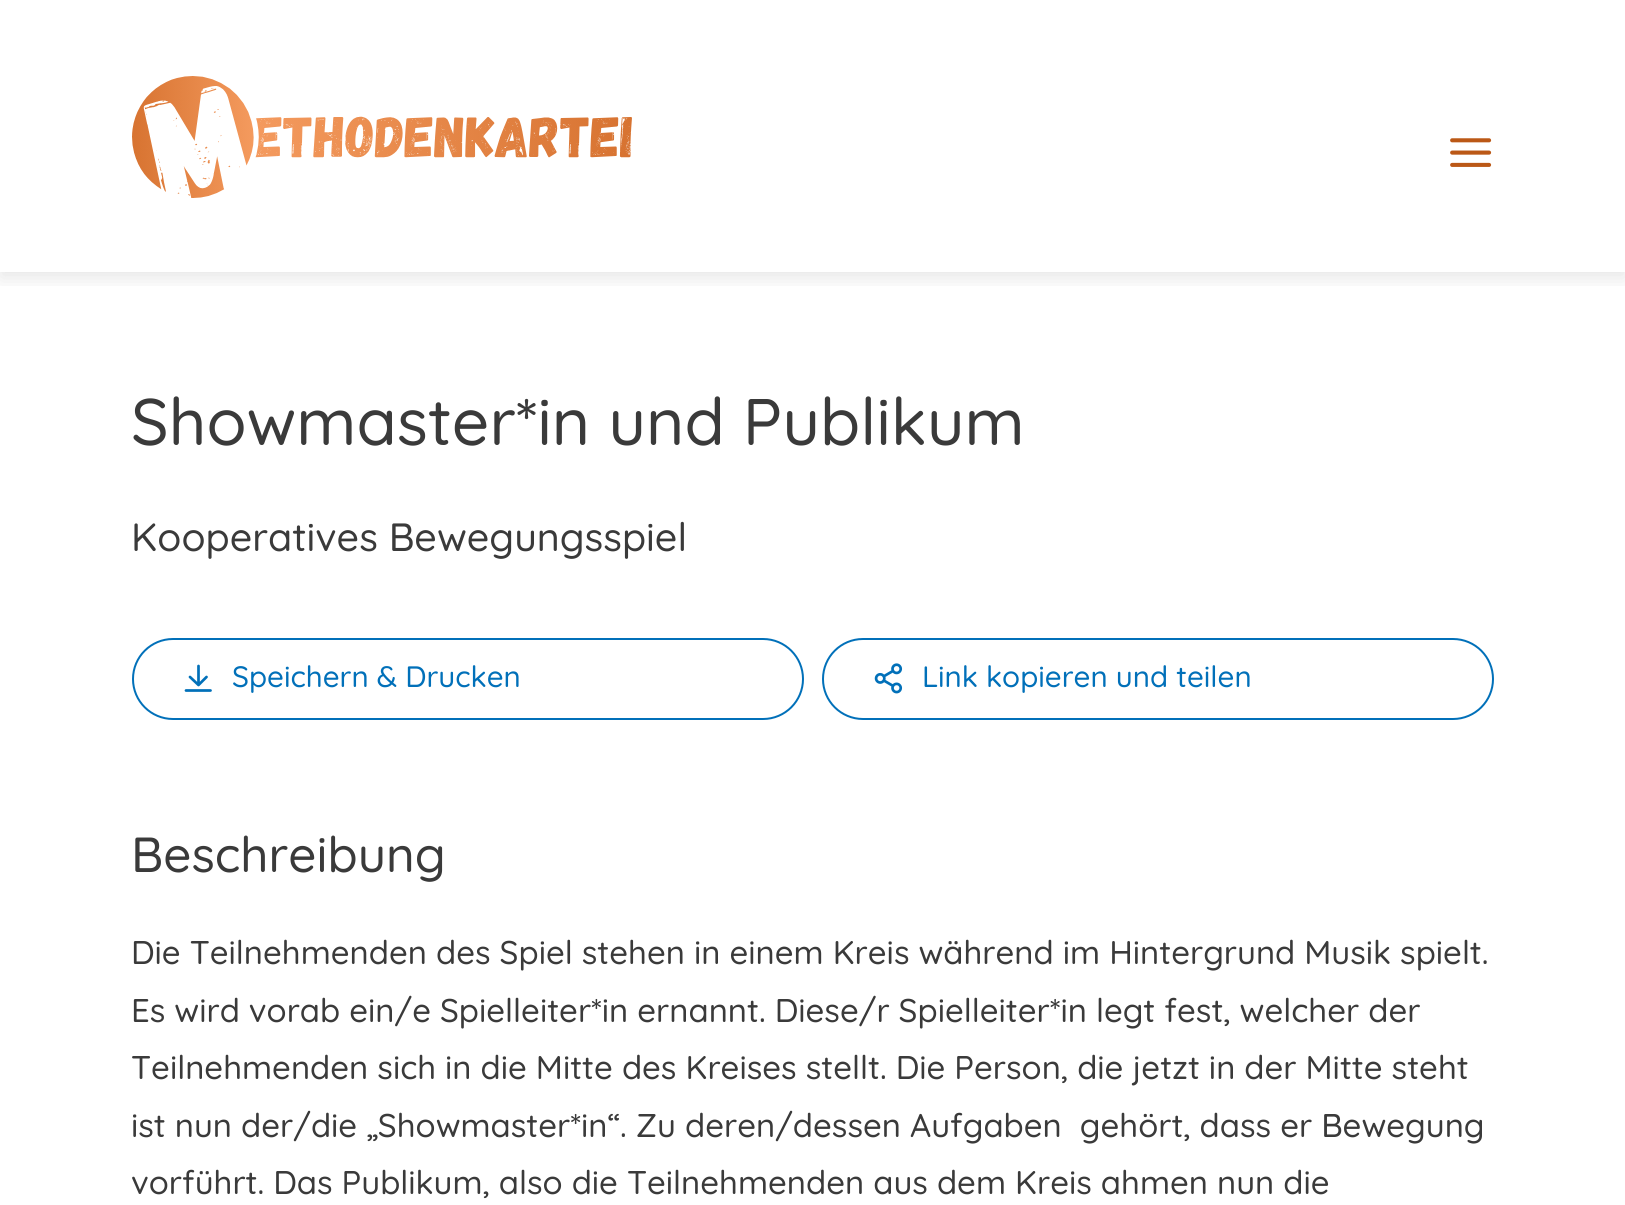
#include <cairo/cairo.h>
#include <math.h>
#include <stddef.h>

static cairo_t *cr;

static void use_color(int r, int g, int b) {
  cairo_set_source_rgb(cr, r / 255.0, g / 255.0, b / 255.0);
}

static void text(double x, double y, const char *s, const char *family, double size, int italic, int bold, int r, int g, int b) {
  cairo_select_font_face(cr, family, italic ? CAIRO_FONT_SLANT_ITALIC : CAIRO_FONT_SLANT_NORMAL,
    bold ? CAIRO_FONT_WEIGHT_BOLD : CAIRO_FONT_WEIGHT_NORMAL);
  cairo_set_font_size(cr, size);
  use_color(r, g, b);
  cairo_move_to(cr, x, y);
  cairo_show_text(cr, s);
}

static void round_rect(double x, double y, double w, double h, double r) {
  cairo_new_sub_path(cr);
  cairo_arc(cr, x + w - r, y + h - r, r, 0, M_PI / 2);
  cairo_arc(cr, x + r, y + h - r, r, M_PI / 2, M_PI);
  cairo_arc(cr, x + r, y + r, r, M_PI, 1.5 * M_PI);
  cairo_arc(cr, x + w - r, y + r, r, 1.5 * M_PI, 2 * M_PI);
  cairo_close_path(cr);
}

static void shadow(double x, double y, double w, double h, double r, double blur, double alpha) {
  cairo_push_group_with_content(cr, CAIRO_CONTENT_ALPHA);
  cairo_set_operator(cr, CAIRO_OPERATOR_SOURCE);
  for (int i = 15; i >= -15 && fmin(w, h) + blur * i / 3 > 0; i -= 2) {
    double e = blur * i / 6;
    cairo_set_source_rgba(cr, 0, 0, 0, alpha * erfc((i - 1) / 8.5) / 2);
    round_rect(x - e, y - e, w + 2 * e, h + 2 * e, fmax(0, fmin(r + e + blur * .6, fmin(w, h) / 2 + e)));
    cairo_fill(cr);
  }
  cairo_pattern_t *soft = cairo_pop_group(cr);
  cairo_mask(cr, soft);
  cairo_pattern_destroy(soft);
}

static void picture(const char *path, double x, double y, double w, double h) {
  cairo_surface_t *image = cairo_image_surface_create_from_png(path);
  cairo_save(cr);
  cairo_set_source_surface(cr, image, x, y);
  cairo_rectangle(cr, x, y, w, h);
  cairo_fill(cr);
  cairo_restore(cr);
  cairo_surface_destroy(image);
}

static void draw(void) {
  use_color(255, 255, 255);
  cairo_paint(cr);
  cairo_save(cr);
  cairo_rectangle(cr, 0, 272, 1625, 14);
  cairo_clip(cr);
  use_color(0, 0, 0);
  shadow(0, 6, 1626, 272, 0, 10, 0.1);
  cairo_restore(cr);
  picture("img_01.png", 132, 76, 500, 122);
  picture("img_02.png", 1450, 138, 42, 29);
  round_rect(133, 639, 670, 80, 40);
  use_color(1, 112, 185);
  cairo_stroke(cr);
  cairo_new_path(cr);
  cairo_move_to(cr, 210.5, 690.5);
  cairo_line_to(cr, 186, 690.5);
  cairo_move_to(cr, 206.5, 677);
  cairo_line_to(cr, 198.5, 685);
  cairo_move_to(cr, 198.5, 685);
  cairo_line_to(cr, 190, 677);
  cairo_move_to(cr, 198.5, 685);
  cairo_line_to(cr, 198.5, 666);
  cairo_set_line_width(cr, 2.7);
  cairo_set_line_cap(cr, CAIRO_LINE_CAP_ROUND);
  cairo_set_line_join(cr, CAIRO_LINE_JOIN_ROUND);
  cairo_stroke(cr);
  round_rect(823, 639, 670, 80, 40);
  cairo_set_line_width(cr, 2);
  cairo_set_line_cap(cr, CAIRO_LINE_CAP_BUTT);
  cairo_set_line_join(cr, CAIRO_LINE_JOIN_MITER);
  cairo_stroke(cr);
  picture("img_03.png", 874, 663, 29, 31);
  text(131, 445, "Showmaster*in und Publikum", "Quicksand Medium", 65.7, 0, 0, 58, 58, 58);
  text(131, 551, "Kooperatives Bewegungsspiel", "Quicksand Medium", 39.4, 0, 0, 58, 58, 58);
  text(232, 687, "Speichern & Drucken", "Quicksand Medium", 29.5, 0, 0, 1, 112, 185);
  text(922, 687, "Link kopieren und teilen", "Quicksand Medium", 29.5, 0, 0, 1, 112, 185);
  text(131, 872, "Beschreibung", "Quicksand Medium", 49.25, 0, 0, 58, 58, 58);
  text(131, 964, "Die Teilnehmenden des Spiel stehen in einem Kreis während im Hintergrund Musik spielt.", "Quicksand Medium", 32.85, 0, 0, 58, 58, 58);
  text(131, 1022, "Es wird vorab ein/e Spielleiter*in ernannt. Diese/r Spielleiter*in legt fest, welcher der", "Quicksand Medium", 32.85, 0, 0, 58, 58, 58);
  text(131, 1079, "Teilnehmenden sich in die Mitte des Kreises stellt. Die Person, die jetzt in der Mitte steht", "Quicksand Medium", 32.85, 0, 0, 58, 58, 58);
  text(131, 1137, "ist nun der/die „Showmaster*in“. Zu deren/dessen Aufgaben  gehört, dass er Bewegung", "Quicksand Medium", 32.85, 0, 0, 58, 58, 58);
  text(131, 1194, "vorführt. Das Publikum, also die Teilnehmenden aus dem Kreis ahmen nun die", "Quicksand Medium", 32.85, 0, 0, 58, 58, 58);
}

int main(void) {
  cairo_surface_t *surface = cairo_image_surface_create(CAIRO_FORMAT_RGB24, 1625, 1205);
  cr = cairo_create(surface);
  cairo_font_options_t *options = cairo_font_options_create();
  cairo_font_options_set_hint_metrics(options, CAIRO_HINT_METRICS_OFF);
  cairo_font_options_set_hint_style(options, CAIRO_HINT_STYLE_NONE);
  cairo_set_font_options(cr, options);
  cairo_set_miter_limit(cr, 4);
  draw();
  cairo_surface_write_to_png(surface, "out.png");
  cairo_font_options_destroy(options);
  cairo_destroy(cr);
  cairo_surface_destroy(surface);
  return 0;
}
